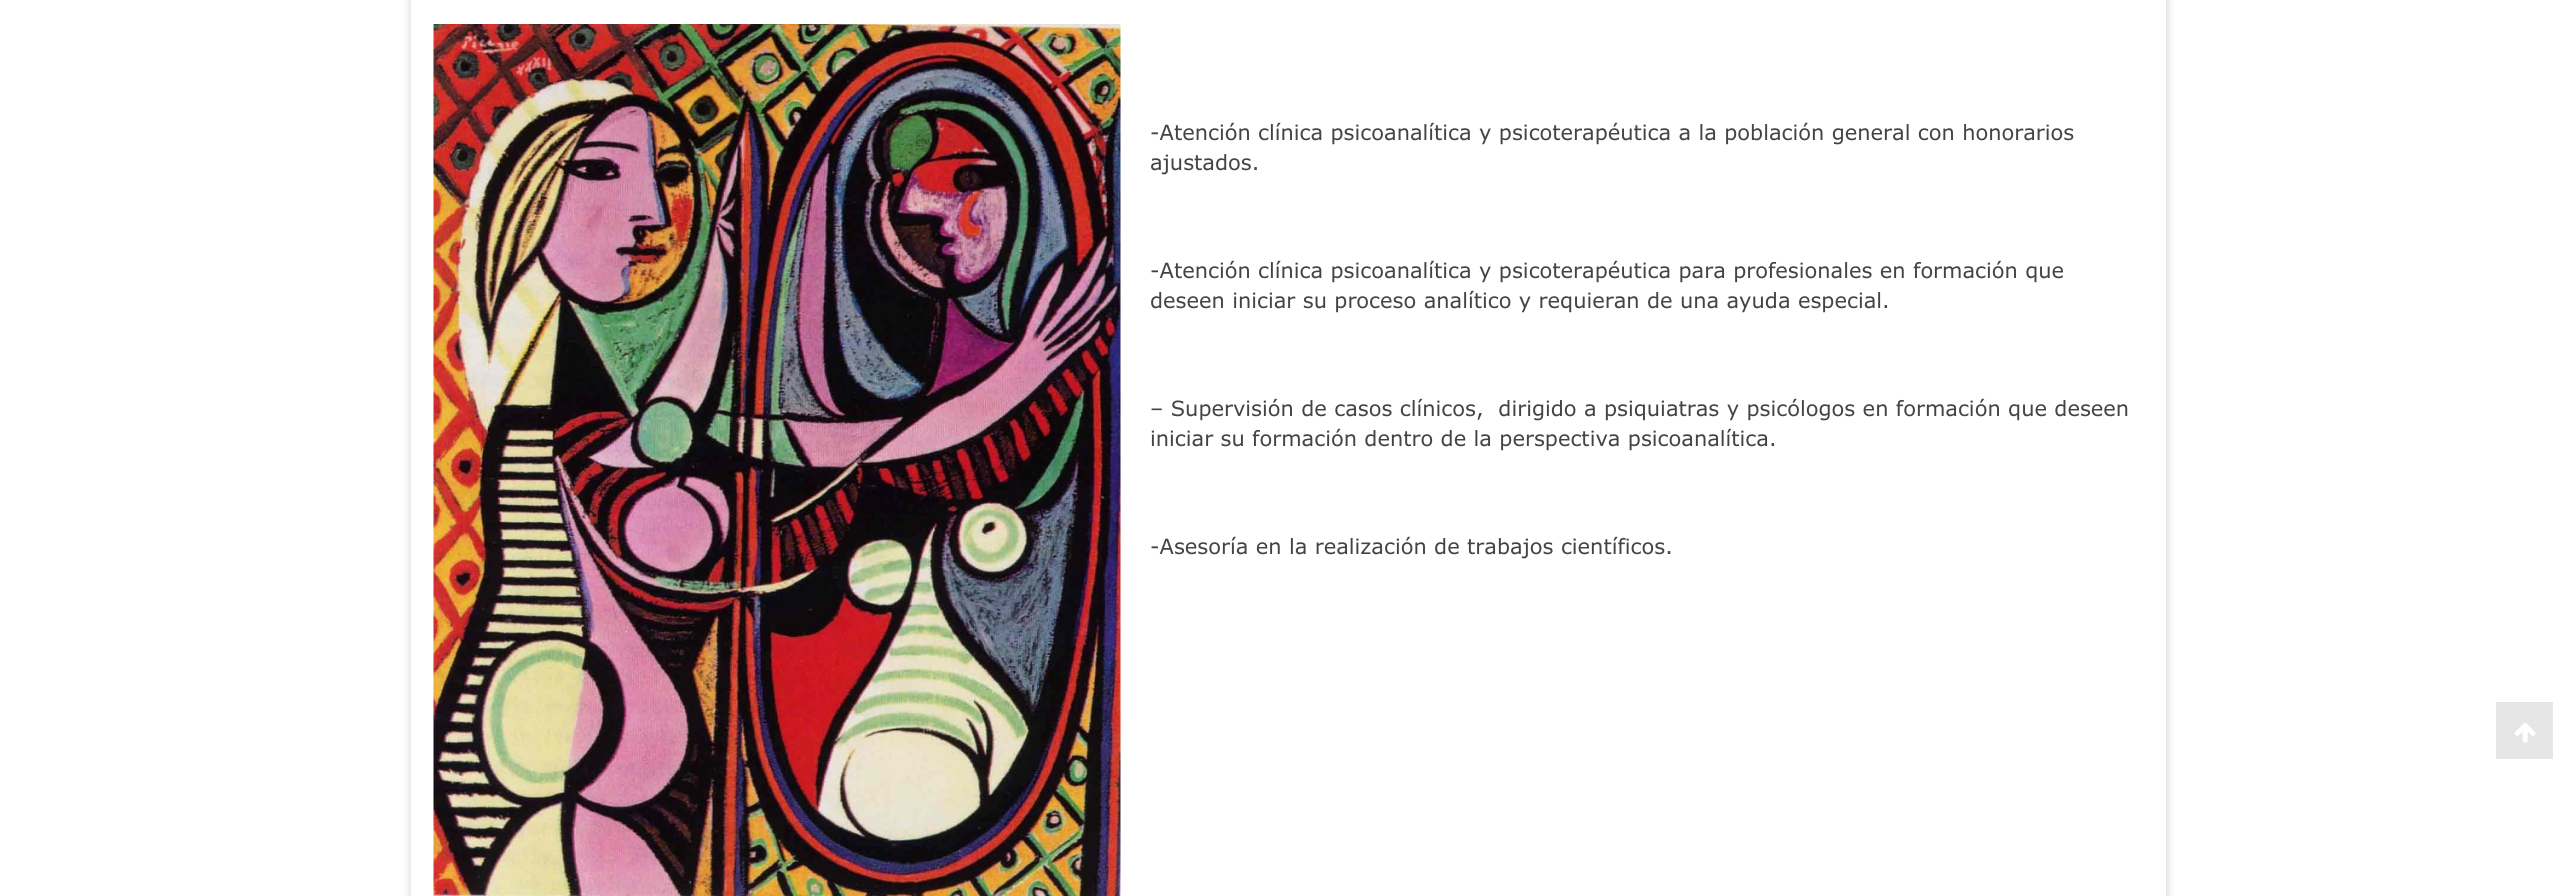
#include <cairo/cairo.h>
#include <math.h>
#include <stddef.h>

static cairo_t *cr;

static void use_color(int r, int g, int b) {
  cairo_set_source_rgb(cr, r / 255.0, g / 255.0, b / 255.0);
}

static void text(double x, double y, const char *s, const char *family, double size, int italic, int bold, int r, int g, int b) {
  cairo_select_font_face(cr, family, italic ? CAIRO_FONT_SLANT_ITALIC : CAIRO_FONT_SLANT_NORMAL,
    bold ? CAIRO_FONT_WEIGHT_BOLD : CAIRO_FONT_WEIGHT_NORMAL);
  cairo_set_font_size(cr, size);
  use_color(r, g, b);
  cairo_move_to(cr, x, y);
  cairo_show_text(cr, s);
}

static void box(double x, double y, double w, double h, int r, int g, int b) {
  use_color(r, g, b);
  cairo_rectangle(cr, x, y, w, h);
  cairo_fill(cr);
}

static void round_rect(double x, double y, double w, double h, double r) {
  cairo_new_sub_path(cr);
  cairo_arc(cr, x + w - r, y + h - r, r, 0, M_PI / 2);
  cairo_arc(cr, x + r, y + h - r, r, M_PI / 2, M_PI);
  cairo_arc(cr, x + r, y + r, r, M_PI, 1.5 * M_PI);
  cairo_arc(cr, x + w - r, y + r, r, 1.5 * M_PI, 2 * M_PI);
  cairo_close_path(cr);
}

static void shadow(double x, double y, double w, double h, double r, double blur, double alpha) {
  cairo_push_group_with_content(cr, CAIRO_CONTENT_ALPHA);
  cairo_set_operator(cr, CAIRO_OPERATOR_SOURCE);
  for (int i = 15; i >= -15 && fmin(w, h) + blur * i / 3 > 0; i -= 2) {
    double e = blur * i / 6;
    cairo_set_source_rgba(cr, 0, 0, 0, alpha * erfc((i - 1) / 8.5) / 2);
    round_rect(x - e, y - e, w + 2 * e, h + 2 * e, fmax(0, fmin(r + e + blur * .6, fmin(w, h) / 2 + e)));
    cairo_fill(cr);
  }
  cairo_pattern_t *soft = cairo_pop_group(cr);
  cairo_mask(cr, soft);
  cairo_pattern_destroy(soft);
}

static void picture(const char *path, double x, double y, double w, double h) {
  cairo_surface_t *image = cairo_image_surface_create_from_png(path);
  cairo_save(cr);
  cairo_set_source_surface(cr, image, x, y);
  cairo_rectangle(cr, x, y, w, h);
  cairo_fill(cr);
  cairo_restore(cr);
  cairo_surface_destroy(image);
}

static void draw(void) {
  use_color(255, 255, 255);
  cairo_paint(cr);
  cairo_save(cr);
  cairo_set_fill_rule(cr, CAIRO_FILL_RULE_EVEN_ODD);
  cairo_new_path(cr);
  cairo_move_to(cr, 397, 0);
  cairo_line_to(cr, 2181, 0);
  cairo_line_to(cr, 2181, 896);
  cairo_line_to(cr, 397, 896);
  cairo_close_path(cr);
  cairo_move_to(cr, 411, -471);
  cairo_line_to(cr, 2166, -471);
  cairo_line_to(cr, 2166, 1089);
  cairo_line_to(cr, 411, 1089);
  cairo_close_path(cr);
  cairo_clip(cr);
  use_color(0, 0, 0);
  shadow(410, -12, 1758, 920, 0, 4, 0.16);
  cairo_restore(cr);
  picture("img_01.png", 433, 24, 688, 872);
  box(2496, 702, 57, 57, 230, 230, 230);
  picture("img_02.png", 2514, 723, 22, 20);
  text(1150, 140, "-Atención clínica psicoanalítica y psicoterapéutica a la población general con honorarios", "Verdana", 21, 0, 0, 68, 68, 68);
  text(1150, 170, "ajustados.", "Verdana", 21, 0, 0, 68, 68, 68);
  text(1150, 278, "-Atención clínica psicoanalítica y psicoterapéutica para profesionales en formación que", "Verdana", 21, 0, 0, 68, 68, 68);
  text(1150, 308, "deseen iniciar su proceso analítico y requieran de una ayuda especial.", "Verdana", 21, 0, 0, 68, 68, 68);
  text(1150, 416, "– Supervisión de casos clínicos,  dirigido a psiquiatras y psicólogos en formación que deseen", "Verdana", 21, 0, 0, 68, 68, 68);
  text(1150, 446, "iniciar su formación dentro de la perspectiva psicoanalítica.", "Verdana", 21, 0, 0, 68, 68, 68);
  text(1150, 554, "-Asesoría en la realización de trabajos científicos.", "Verdana", 21, 0, 0, 68, 68, 68);
}

int main(void) {
  cairo_surface_t *surface = cairo_image_surface_create(CAIRO_FORMAT_RGB24, 2575, 896);
  cr = cairo_create(surface);
  cairo_font_options_t *options = cairo_font_options_create();
  cairo_font_options_set_hint_metrics(options, CAIRO_HINT_METRICS_OFF);
  cairo_font_options_set_hint_style(options, CAIRO_HINT_STYLE_NONE);
  cairo_set_font_options(cr, options);
  cairo_set_miter_limit(cr, 4);
  draw();
  cairo_surface_write_to_png(surface, "out.png");
  cairo_font_options_destroy(options);
  cairo_destroy(cr);
  cairo_surface_destroy(surface);
  return 0;
}
